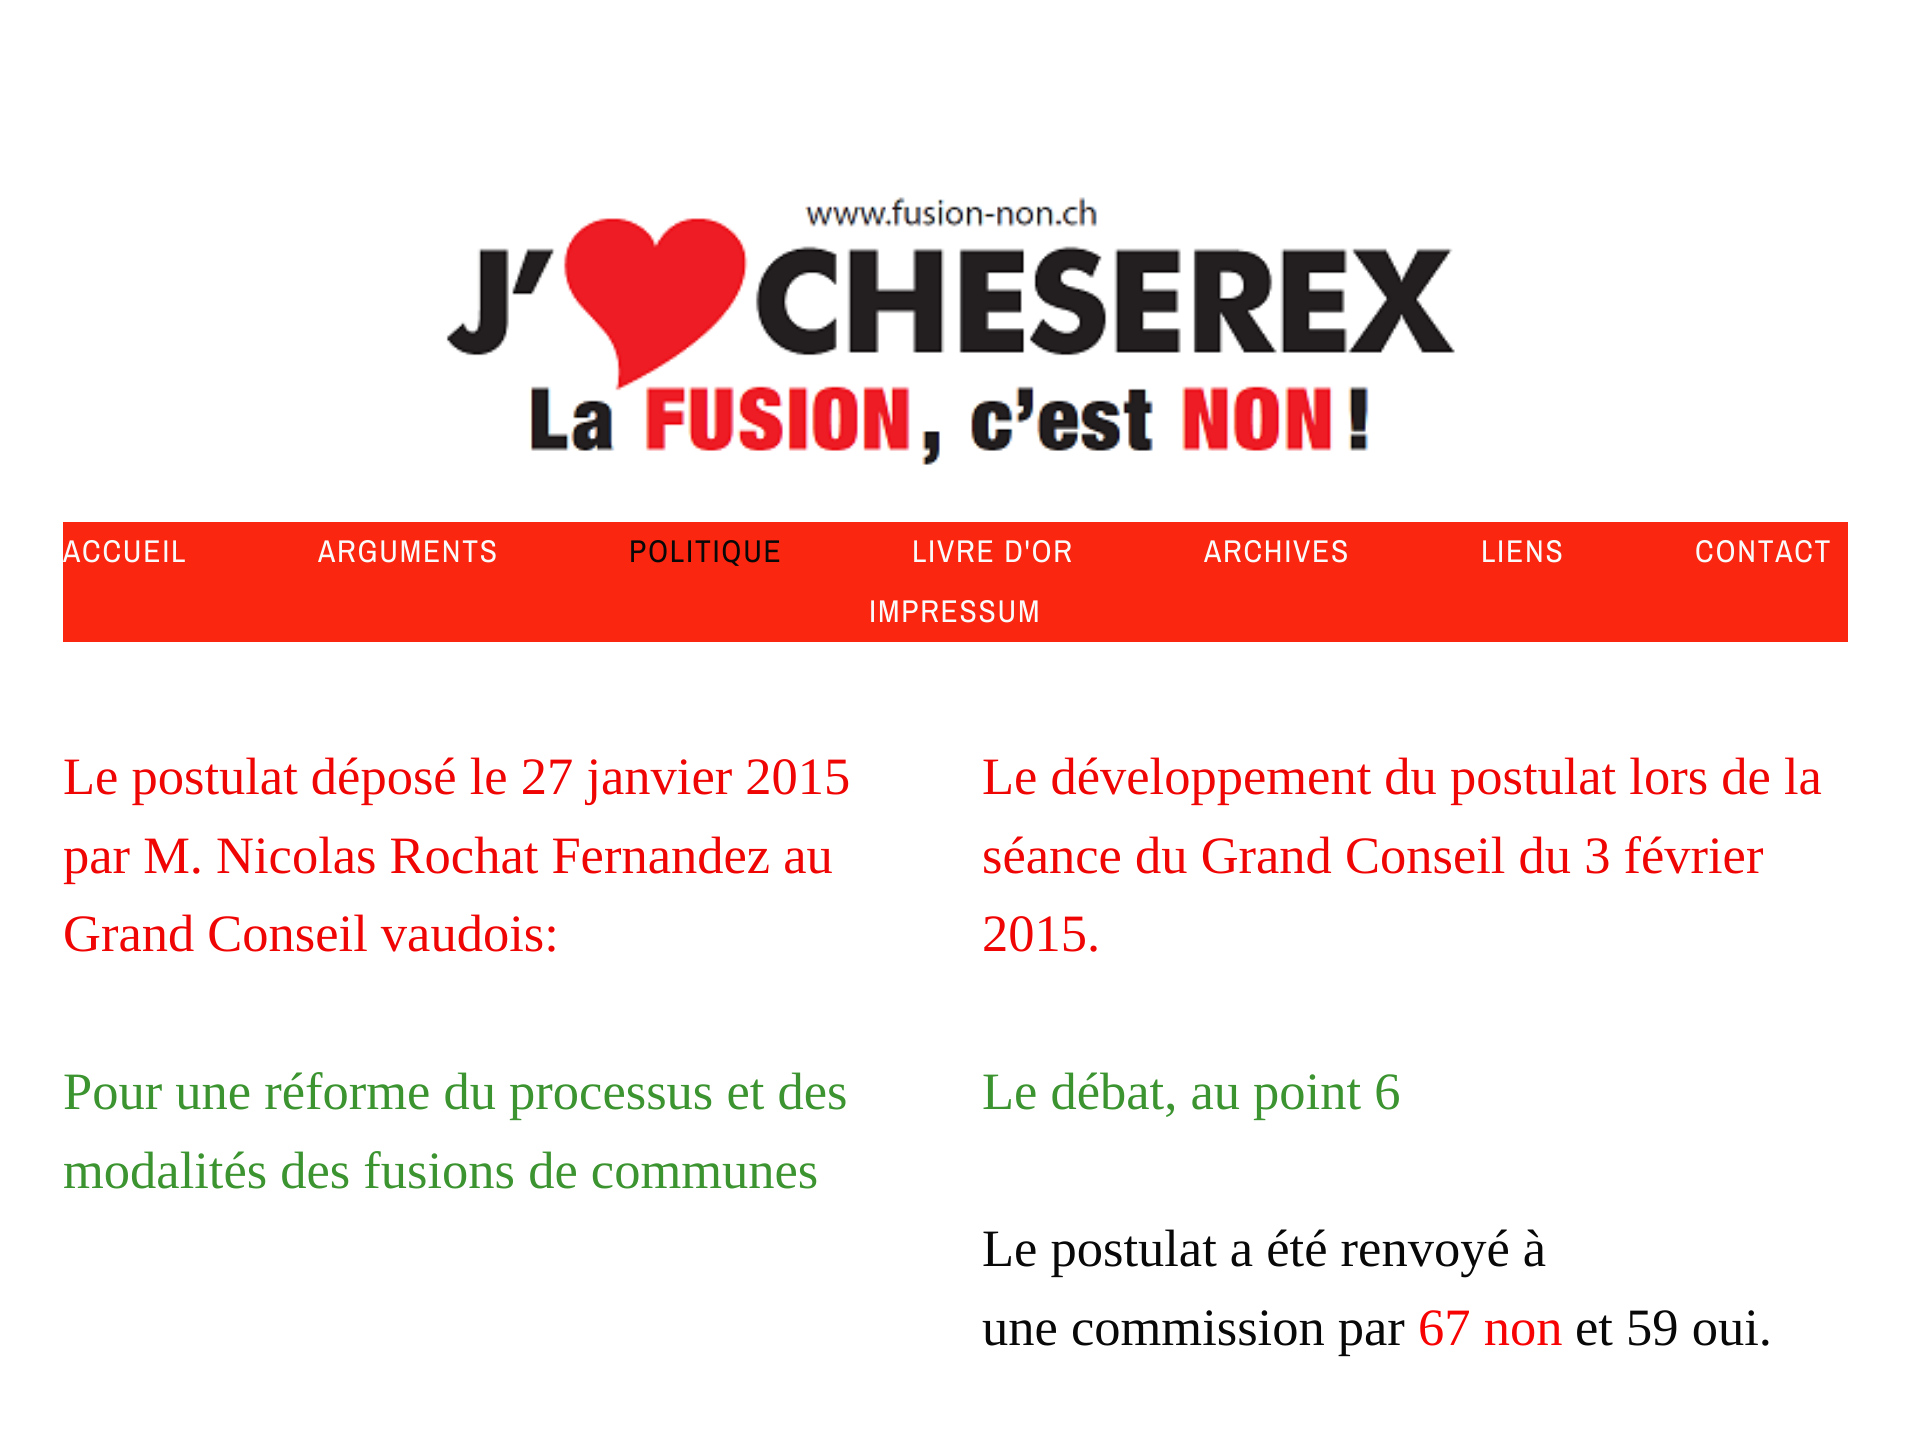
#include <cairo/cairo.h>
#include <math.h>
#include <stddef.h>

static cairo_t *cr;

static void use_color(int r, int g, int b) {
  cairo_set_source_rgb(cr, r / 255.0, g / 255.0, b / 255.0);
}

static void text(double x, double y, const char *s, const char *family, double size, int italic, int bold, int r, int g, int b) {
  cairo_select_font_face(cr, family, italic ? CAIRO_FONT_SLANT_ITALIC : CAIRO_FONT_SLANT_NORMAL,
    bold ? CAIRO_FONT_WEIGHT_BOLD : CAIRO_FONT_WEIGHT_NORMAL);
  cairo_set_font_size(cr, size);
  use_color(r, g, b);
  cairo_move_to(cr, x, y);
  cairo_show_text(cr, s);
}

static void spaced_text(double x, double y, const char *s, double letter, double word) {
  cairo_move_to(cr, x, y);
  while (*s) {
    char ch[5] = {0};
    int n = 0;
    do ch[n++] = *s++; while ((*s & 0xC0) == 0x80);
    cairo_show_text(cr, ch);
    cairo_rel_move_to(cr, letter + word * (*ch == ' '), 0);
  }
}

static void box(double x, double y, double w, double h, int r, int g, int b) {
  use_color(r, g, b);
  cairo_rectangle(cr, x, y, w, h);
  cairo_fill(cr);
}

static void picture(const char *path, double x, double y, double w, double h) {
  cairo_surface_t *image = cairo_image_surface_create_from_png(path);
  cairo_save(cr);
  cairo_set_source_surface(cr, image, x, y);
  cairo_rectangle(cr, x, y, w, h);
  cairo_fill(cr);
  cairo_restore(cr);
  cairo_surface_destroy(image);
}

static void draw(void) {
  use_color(255, 255, 255);
  cairo_paint(cr);
  picture("img_01.png", 446, 197, 1009, 268);
  box(63, 522, 1785, 120, 250, 38, 15);
  cairo_select_font_face(cr, "Archivo Narrow", CAIRO_FONT_SLANT_NORMAL, CAIRO_FONT_WEIGHT_NORMAL);
  cairo_set_font_size(cr, 31.5);
  use_color(250, 250, 250);
  spaced_text(63, 562, "ACCUEIL", 1.75, 0);
  spaced_text(318, 562, "ARGUMENTS", 1.75, 0);
  use_color(8, 8, 8);
  spaced_text(629, 562, "POLITIQUE", 1.75, 0);
  use_color(250, 250, 250);
  spaced_text(912, 562, "LIVRE D'OR", 1.75, 0);
  spaced_text(1204, 562, "ARCHIVES", 1.75, 0);
  spaced_text(1481, 562, "LIENS", 1.75, 0);
  spaced_text(1695, 562, "CONTACT", 1.75, 0);
  spaced_text(869, 622, "IMPRESSUM", 1.75, 0);
  text(63, 794, "Le postulat déposé le 27 janvier 2015", "Liberation Serif", 52.5, 0, 0, 240, 5, 5);
  text(63, 873, "par M. Nicolas Rochat Fernandez au", "Liberation Serif", 52.5, 0, 0, 240, 5, 5);
  text(63, 951, "Grand Conseil vaudois:", "Liberation Serif", 52.5, 0, 0, 240, 5, 5);
  text(63, 1109, "Pour une réforme du processus et des", "Liberation Serif", 52.5, 0, 0, 59, 148, 48);
  text(63, 1188, "modalités des fusions de communes", "Liberation Serif", 52.5, 0, 0, 59, 148, 48);
  text(982, 794, "Le développement du postulat lors de la", "Liberation Serif", 52.5, 0, 0, 240, 5, 5);
  text(982, 873, "séance du Grand Conseil du 3 février", "Liberation Serif", 52.5, 0, 0, 240, 5, 5);
  text(982, 951, "2015.", "Liberation Serif", 52.5, 0, 0, 240, 5, 5);
  text(982, 1109, "Le débat, au point 6", "Liberation Serif", 52.5, 0, 0, 59, 148, 48);
  text(982, 1266, "Le postulat a été renvoyé à", "Liberation Serif", 52.5, 0, 0, 8, 8, 8);
  text(982, 1345, "une commission par", "Liberation Serif", 52.5, 0, 0, 8, 8, 8);
  text(1418, 1345, "67 non", "Liberation Serif", 52.5, 0, 0, 247, 3, 3);
  text(1575, 1345, "et 59 oui.", "Liberation Serif", 52.5, 0, 0, 8, 8, 8);
}

int main(void) {
  cairo_surface_t *surface = cairo_image_surface_create(CAIRO_FORMAT_RGB24, 1911, 1446);
  cr = cairo_create(surface);
  cairo_font_options_t *options = cairo_font_options_create();
  cairo_font_options_set_hint_metrics(options, CAIRO_HINT_METRICS_OFF);
  cairo_font_options_set_hint_style(options, CAIRO_HINT_STYLE_NONE);
  cairo_set_font_options(cr, options);
  cairo_set_miter_limit(cr, 4);
  draw();
  cairo_surface_write_to_png(surface, "out.png");
  cairo_font_options_destroy(options);
  cairo_destroy(cr);
  cairo_surface_destroy(surface);
  return 0;
}
